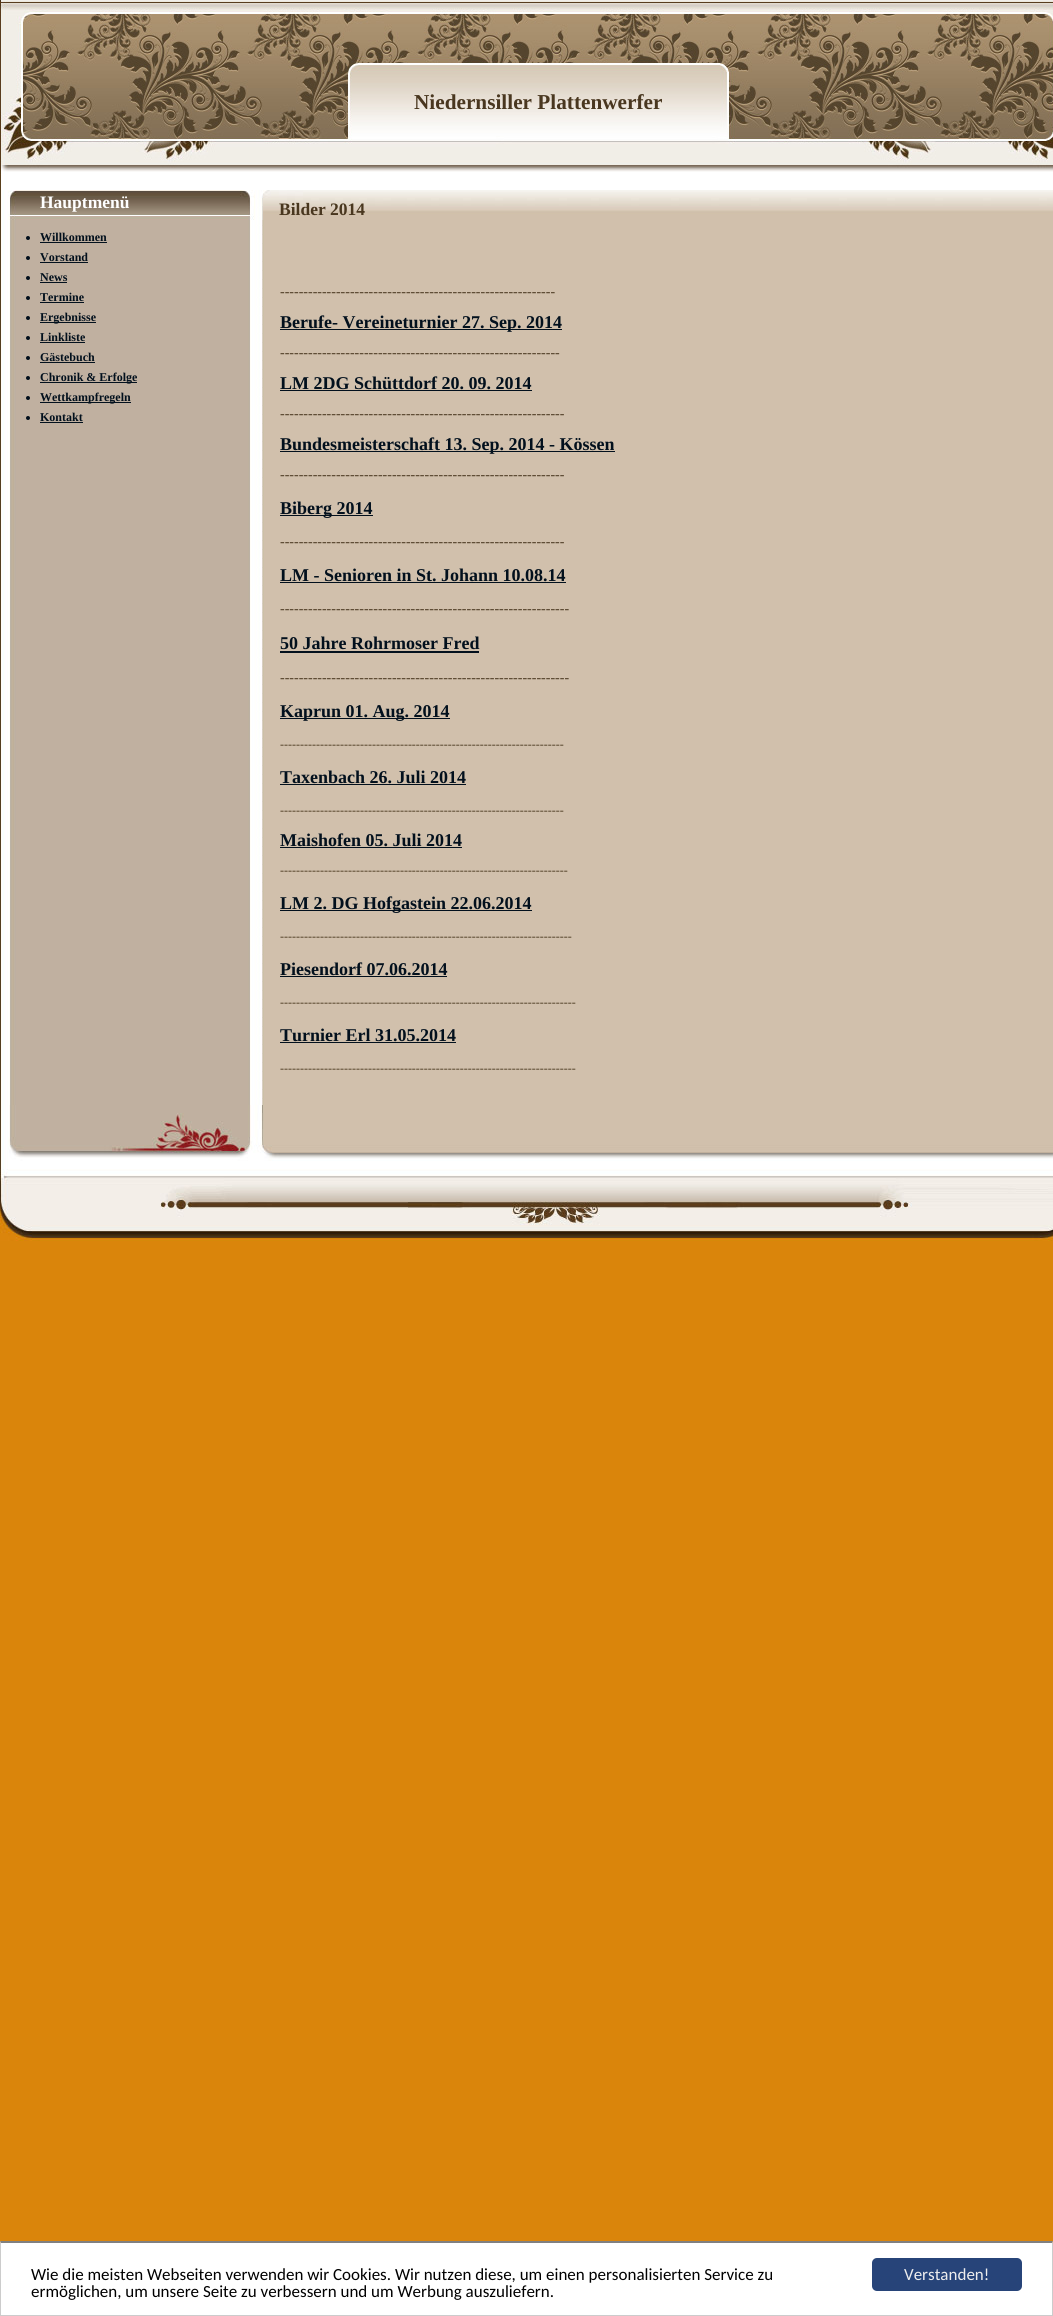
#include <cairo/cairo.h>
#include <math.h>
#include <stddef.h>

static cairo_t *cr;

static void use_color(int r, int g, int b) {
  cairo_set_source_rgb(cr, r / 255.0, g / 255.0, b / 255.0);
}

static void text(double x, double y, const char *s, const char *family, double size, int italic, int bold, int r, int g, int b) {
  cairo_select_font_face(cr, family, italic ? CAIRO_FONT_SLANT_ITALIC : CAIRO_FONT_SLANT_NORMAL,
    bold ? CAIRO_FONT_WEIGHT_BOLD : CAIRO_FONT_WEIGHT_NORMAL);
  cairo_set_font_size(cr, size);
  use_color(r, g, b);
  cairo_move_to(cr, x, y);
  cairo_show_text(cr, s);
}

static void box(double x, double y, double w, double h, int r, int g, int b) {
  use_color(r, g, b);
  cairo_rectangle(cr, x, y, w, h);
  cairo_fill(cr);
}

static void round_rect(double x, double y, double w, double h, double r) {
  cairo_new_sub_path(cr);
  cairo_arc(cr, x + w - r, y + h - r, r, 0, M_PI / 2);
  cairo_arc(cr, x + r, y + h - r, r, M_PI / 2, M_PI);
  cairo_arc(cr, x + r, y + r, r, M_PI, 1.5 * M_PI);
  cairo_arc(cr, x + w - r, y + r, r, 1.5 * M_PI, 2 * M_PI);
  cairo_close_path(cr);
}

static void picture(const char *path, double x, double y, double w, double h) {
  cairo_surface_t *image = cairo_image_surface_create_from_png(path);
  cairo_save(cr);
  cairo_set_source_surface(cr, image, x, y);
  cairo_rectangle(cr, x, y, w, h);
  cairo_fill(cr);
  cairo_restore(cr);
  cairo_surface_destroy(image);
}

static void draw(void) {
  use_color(218, 133, 11);
  cairo_paint(cr);
  picture("img_01.png", 0, 0, 1053, 190);
  picture("img_02.png", 0, 190, 1053, 915);
  picture("img_03.png", 8, 190, 247, 30);
  use_color(2, 16, 29);
  cairo_arc(cr, 28, 238, 2, 0, 2 * M_PI);
  cairo_fill(cr);
  box(40, 242, 67, 1, 2, 16, 29);
  cairo_arc(cr, 28, 258, 2, 0, 2 * M_PI);
  cairo_fill(cr);
  box(40, 262, 48, 1, 2, 16, 29);
  cairo_arc(cr, 28, 278, 2, 0, 2 * M_PI);
  cairo_fill(cr);
  box(40, 282, 27, 1, 2, 16, 29);
  cairo_arc(cr, 28, 298, 2, 0, 2 * M_PI);
  cairo_fill(cr);
  box(40, 302, 44, 1, 2, 16, 29);
  cairo_arc(cr, 28, 318, 2, 0, 2 * M_PI);
  cairo_fill(cr);
  box(40, 322, 56, 1, 2, 16, 29);
  cairo_arc(cr, 28, 338, 2, 0, 2 * M_PI);
  cairo_fill(cr);
  box(40, 342, 45, 1, 2, 16, 29);
  cairo_arc(cr, 28, 358, 2, 0, 2 * M_PI);
  cairo_fill(cr);
  box(40, 362, 55, 1, 2, 16, 29);
  cairo_arc(cr, 28, 378, 2, 0, 2 * M_PI);
  cairo_fill(cr);
  box(40, 382, 97, 1, 2, 16, 29);
  cairo_arc(cr, 28, 398, 2, 0, 2 * M_PI);
  cairo_fill(cr);
  box(40, 402, 91, 1, 2, 16, 29);
  cairo_arc(cr, 28, 418, 2, 0, 2 * M_PI);
  cairo_fill(cr);
  box(40, 422, 43, 1, 2, 16, 29);
  picture("img_04.png", 261, 190, 792, 30);
  box(280, 329, 282, 1, 2, 16, 29);
  box(280, 390, 252, 1, 2, 16, 29);
  box(280, 451, 335, 1, 2, 16, 29);
  box(280, 515, 93, 1, 2, 16, 29);
  box(280, 582, 286, 1, 2, 16, 29);
  box(280, 651, 199, 2, 2, 16, 29);
  box(280, 718, 170, 1, 2, 16, 29);
  box(280, 784, 186, 1, 2, 16, 29);
  box(280, 847, 182, 1, 2, 16, 29);
  box(280, 910, 252, 1, 2, 16, 29);
  box(280, 976, 167, 1, 2, 16, 29);
  box(280, 1042, 176, 1, 2, 16, 29);
  picture("img_05.png", 0, 1105, 1053, 136);
  box(1, 2243, 1051, 72, 255, 255, 255);
  use_color(128, 128, 128);
  cairo_new_path(cr);
  cairo_move_to(cr, 0, 2241);
  cairo_line_to(cr, 1053, 2241);
  cairo_line_to(cr, 1052, 2243);
  cairo_line_to(cr, 1, 2243);
  cairo_close_path(cr);
  cairo_fill(cr);
  use_color(204, 204, 204);
  cairo_new_path(cr);
  cairo_move_to(cr, 1053, 2241);
  cairo_line_to(cr, 1053, 2316);
  cairo_line_to(cr, 1052, 2315);
  cairo_line_to(cr, 1052, 2243);
  cairo_close_path(cr);
  cairo_fill(cr);
  box(0, 2315, 1053, 1, 204, 204, 204);
  cairo_new_path(cr);
  cairo_move_to(cr, 0, 2316);
  cairo_line_to(cr, 0, 2241);
  cairo_line_to(cr, 1, 2243);
  cairo_line_to(cr, 1, 2315);
  cairo_close_path(cr);
  cairo_fill(cr);
  use_color(39, 68, 121);
  round_rect(872, 2258, 150, 33, 5);
  cairo_fill(cr);
  text(414, 109, "Niedernsiller Plattenwerfer", "Liberation Serif", 21.25, 0, 1, 73, 55, 31);
  text(40, 208, "Hauptmenü", "Liberation Serif", 17.5, 0, 1, 255, 255, 255);
  text(40, 241, "Willkommen", "Liberation Serif", 12, 0, 1, 2, 16, 29);
  text(40, 261, "Vorstand", "Liberation Serif", 12, 0, 1, 2, 16, 29);
  text(40, 281, "News", "Liberation Serif", 12, 0, 1, 2, 16, 29);
  text(40, 301, "Termine", "Liberation Serif", 12, 0, 1, 2, 16, 29);
  text(40, 321, "Ergebnisse", "Liberation Serif", 12, 0, 1, 2, 16, 29);
  text(40, 341, "Linkliste", "Liberation Serif", 12, 0, 1, 2, 16, 29);
  text(40, 361, "Gästebuch", "Liberation Serif", 12, 0, 1, 2, 16, 29);
  text(40, 381, "Chronik & Erfolge", "Liberation Serif", 12, 0, 1, 2, 16, 29);
  text(40, 401, "Wettkampfregeln", "Liberation Serif", 12, 0, 1, 2, 16, 29);
  text(40, 421, "Kontakt", "Liberation Serif", 12, 0, 1, 2, 16, 29);
  text(279, 215, "Bilder 2014", "Liberation Serif", 17.5, 0, 1, 73, 55, 31);
  text(280, 296, "-----------------------------------------------------------", "Liberation Serif", 14, 0, 0, 73, 55, 31);
  text(280, 328, "Berufe- Vereineturnier 27. Sep. 2014", "Liberation Serif", 18, 0, 1, 2, 16, 29);
  text(280, 357, "------------------------------------------------------------", "Liberation Serif", 14, 0, 0, 73, 55, 31);
  text(280, 389, "LM 2DG Schüttdorf 20. 09. 2014", "Liberation Serif", 18, 0, 1, 2, 16, 29);
  text(280, 418, "-------------------------------------------------------------", "Liberation Serif", 14, 0, 0, 73, 55, 31);
  text(280, 450, "Bundesmeisterschaft 13. Sep. 2014 - Kössen", "Liberation Serif", 18, 0, 1, 2, 16, 29);
  text(280, 479, "-------------------------------------------------------------", "Liberation Serif", 14, 0, 0, 73, 55, 31);
  text(280, 514, "Biberg 2014", "Liberation Serif", 18, 0, 1, 2, 16, 29);
  text(280, 546, "-------------------------------------------------------------", "Liberation Serif", 14, 0, 0, 73, 55, 31);
  text(280, 581, "LM - Senioren in St. Johann 10.08.14", "Liberation Serif", 18, 0, 1, 2, 16, 29);
  text(280, 613, "--------------------------------------------------------------", "Liberation Serif", 14, 0, 0, 73, 55, 31);
  text(280, 649, "50 Jahre Rohrmoser Fred", "Liberation Serif", 18, 0, 1, 2, 16, 29);
  text(280, 682, "--------------------------------------------------------------", "Liberation Serif", 14, 0, 0, 73, 55, 31);
  text(280, 717, "Kaprun 01. Aug. 2014", "Liberation Serif", 18, 0, 1, 2, 16, 29);
  text(280, 748, "-----------------------------------------------------------------------", "Liberation Serif", 12, 0, 0, 73, 55, 31);
  text(280, 783, "Taxenbach 26. Juli 2014", "Liberation Serif", 18, 0, 1, 2, 16, 29);
  text(280, 814, "-----------------------------------------------------------------------", "Liberation Serif", 12, 0, 0, 73, 55, 31);
  text(280, 846, "Maishofen 05. Juli 2014", "Liberation Serif", 18, 0, 1, 2, 16, 29);
  text(280, 874, "------------------------------------------------------------------------", "Liberation Serif", 12, 0, 0, 73, 55, 31);
  text(280, 909, "LM 2. DG Hofgastein 22.06.2014", "Liberation Serif", 18, 0, 1, 2, 16, 29);
  text(280, 940, "-------------------------------------------------------------------------", "Liberation Serif", 12, 0, 0, 73, 55, 31);
  text(280, 975, "Piesendorf 07.06.2014", "Liberation Serif", 18, 0, 1, 2, 16, 29);
  text(280, 1006, "--------------------------------------------------------------------------", "Liberation Serif", 12, 0, 0, 73, 55, 31);
  text(280, 1041, "Turnier Erl 31.05.2014", "Liberation Serif", 18, 0, 1, 2, 16, 29);
  text(280, 1072, "--------------------------------------------------------------------------", "Liberation Serif", 12, 0, 0, 73, 55, 31);
  text(31, 2280, "Wie die meisten Webseiten verwenden wir Cookies. Wir nutzen diese, um einen personalisierten Service zu", "Carlito", 17, 0, 0, 0, 0, 0);
  text(31, 2297, "ermöglichen, um unsere Seite zu verbessern und um Werbung auszuliefern.", "Carlito", 17, 0, 0, 0, 0, 0);
  text(904, 2280, "Verstanden!", "Carlito", 17, 0, 0, 238, 238, 238);
}

int main(void) {
  cairo_surface_t *surface = cairo_image_surface_create(CAIRO_FORMAT_RGB24, 1053, 2316);
  cr = cairo_create(surface);
  cairo_font_options_t *options = cairo_font_options_create();
  cairo_font_options_set_hint_metrics(options, CAIRO_HINT_METRICS_OFF);
  cairo_font_options_set_hint_style(options, CAIRO_HINT_STYLE_NONE);
  cairo_set_font_options(cr, options);
  cairo_set_miter_limit(cr, 4);
  draw();
  cairo_surface_write_to_png(surface, "out.png");
  cairo_font_options_destroy(options);
  cairo_destroy(cr);
  cairo_surface_destroy(surface);
  return 0;
}
